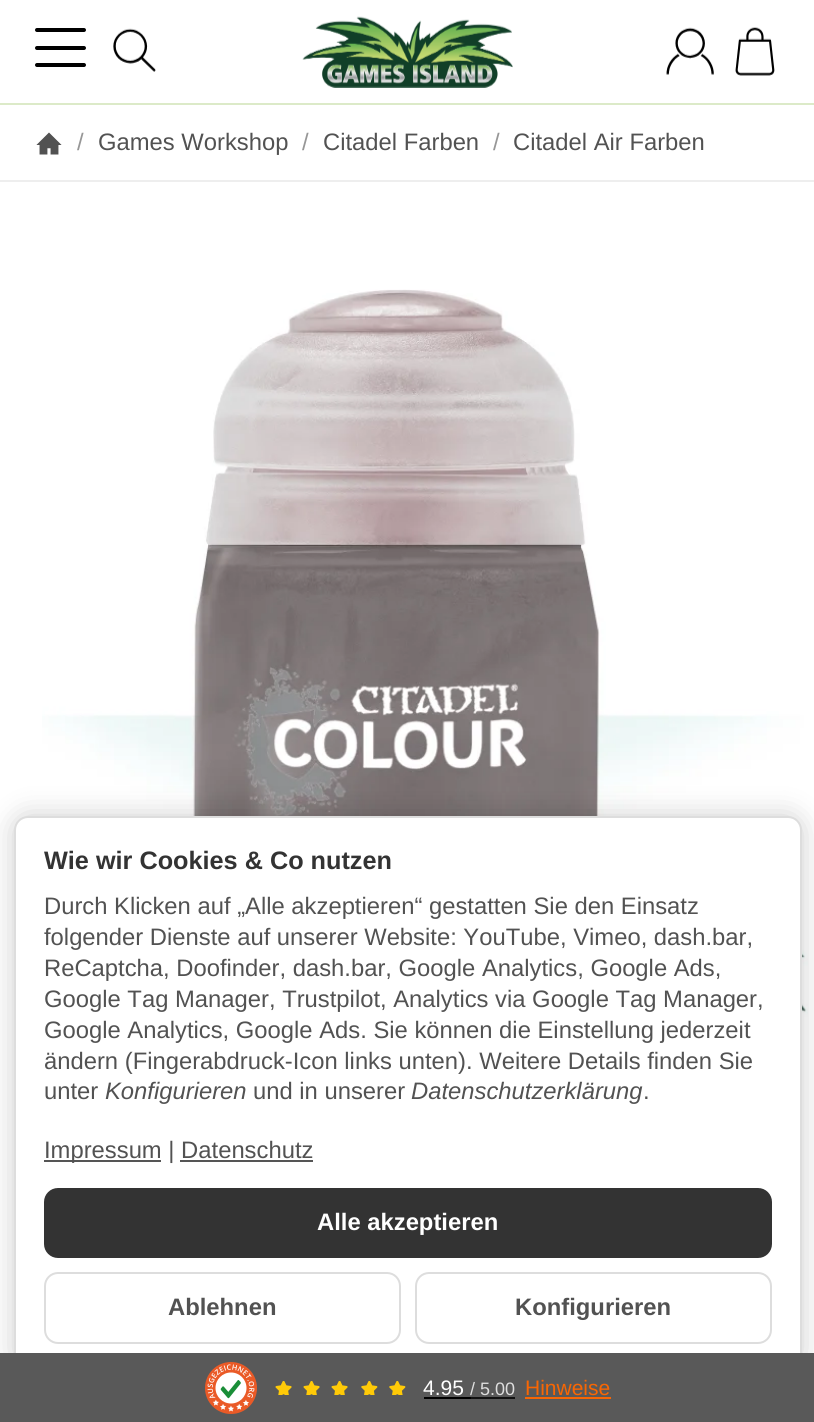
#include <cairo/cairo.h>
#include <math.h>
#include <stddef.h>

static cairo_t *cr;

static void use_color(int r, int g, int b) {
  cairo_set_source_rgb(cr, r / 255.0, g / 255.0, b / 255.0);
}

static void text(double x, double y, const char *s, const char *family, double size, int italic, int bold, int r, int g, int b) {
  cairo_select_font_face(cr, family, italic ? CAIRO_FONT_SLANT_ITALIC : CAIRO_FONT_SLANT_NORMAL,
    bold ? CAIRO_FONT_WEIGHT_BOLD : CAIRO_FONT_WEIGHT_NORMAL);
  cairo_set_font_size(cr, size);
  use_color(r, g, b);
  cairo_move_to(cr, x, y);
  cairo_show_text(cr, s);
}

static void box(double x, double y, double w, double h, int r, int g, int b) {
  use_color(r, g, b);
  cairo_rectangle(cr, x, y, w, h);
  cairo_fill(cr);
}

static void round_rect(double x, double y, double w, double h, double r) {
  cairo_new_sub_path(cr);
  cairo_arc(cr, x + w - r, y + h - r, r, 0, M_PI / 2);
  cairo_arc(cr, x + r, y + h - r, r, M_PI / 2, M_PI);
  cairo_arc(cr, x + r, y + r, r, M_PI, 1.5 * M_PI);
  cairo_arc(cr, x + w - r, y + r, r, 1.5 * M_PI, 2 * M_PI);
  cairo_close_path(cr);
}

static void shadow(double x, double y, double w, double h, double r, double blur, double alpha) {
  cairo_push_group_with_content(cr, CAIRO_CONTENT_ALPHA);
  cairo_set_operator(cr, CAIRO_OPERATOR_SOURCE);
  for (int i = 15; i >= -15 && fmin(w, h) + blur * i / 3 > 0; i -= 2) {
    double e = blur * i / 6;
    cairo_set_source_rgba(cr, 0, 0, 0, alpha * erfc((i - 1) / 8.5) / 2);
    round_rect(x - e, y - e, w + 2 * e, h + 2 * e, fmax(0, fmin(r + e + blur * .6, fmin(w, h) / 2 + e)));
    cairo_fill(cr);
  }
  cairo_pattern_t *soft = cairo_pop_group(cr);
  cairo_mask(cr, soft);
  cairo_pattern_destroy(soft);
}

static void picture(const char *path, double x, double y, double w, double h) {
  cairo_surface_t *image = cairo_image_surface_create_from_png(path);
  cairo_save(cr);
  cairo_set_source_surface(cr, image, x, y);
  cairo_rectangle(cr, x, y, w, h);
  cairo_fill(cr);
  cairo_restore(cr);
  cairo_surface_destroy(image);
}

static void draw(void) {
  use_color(255, 255, 255);
  cairo_paint(cr);
  box(0, 103, 814, 2, 220, 234, 200);
  use_color(0, 0, 0);
  round_rect(35, 28, 51, 4, 2);
  cairo_fill(cr);
  round_rect(35, 46, 51, 4, 2);
  cairo_fill(cr);
  round_rect(35, 63, 51, 4, 2);
  cairo_fill(cr);
  picture("img_01.png", 113, 28, 43, 44);
  picture("img_02.png", 302, 16, 211, 72);
  picture("img_03.png", 666, 27, 48, 48);
  picture("img_04.png", 735, 27, 40, 49);
  box(0, 180, 814, 2, 238, 238, 238);
  picture("img_05.png", 36, 132, 26, 23);
  picture("img_06.png", 42, 289, 766, 756);
  use_color(0, 0, 0);
  shadow(14, 816, 788, 551, 14, 14, 0.2);
  use_color(255, 255, 255);
  round_rect(15, 817, 786, 549, 13);
  cairo_fill_preserve(cr);
  use_color(221, 221, 221);
  cairo_stroke(cr);
  box(44, 1160, 117, 2, 85, 85, 85);
  use_color(51, 51, 51);
  round_rect(45, 1189, 726, 68, 13);
  cairo_fill_preserve(cr);
  cairo_stroke(cr);
  round_rect(45, 1273, 355, 70, 13);
  use_color(221, 221, 221);
  cairo_stroke(cr);
  round_rect(416, 1273, 355, 70, 13);
  cairo_stroke(cr);
  box(0, 1353, 814, 69, 89, 89, 89);
  picture("img_07.png", 205, 1362, 52, 52);
  picture("img_08.png", 275, 1381, 17, 14);
  picture("img_08.png", 303, 1381, 17, 14);
  picture("img_08.png", 331, 1381, 17, 14);
  picture("img_09.png", 361, 1381, 17, 14);
  picture("img_09.png", 389, 1381, 17, 14);
  box(424, 1397, 47, 2, 0, 0, 0);
  box(471, 1397, 44, 2, 18, 18, 18);
  box(525, 1397, 86, 2, 248, 102, 3);
  text(77, 150, "/", "Liberation Sans", 23.8, 0, 0, 151, 151, 151);
  text(98, 150, "Games Workshop", "Liberation Sans", 23.8, 0, 0, 82, 82, 82);
  text(302, 150, "/", "Liberation Sans", 23.8, 0, 0, 151, 151, 151);
  text(323, 150, "Citadel Farben", "Liberation Sans", 23.8, 0, 0, 82, 82, 82);
  text(493, 150, "/", "Liberation Sans", 23.8, 0, 0, 151, 151, 151);
  text(513, 150, "Citadel Air Farben", "Liberation Sans", 23.8, 0, 0, 82, 82, 82);
  text(44, 869, "Wie wir Cookies & Co nutzen", "Liberation Sans", 25.25, 0, 1, 51, 51, 51);
  text(44, 914, "Durch Klicken auf „Alle akzeptieren“ gestatten Sie den Einsatz", "Liberation Sans", 23.8, 0, 0, 82, 82, 82);
  text(44, 945, "folgender Dienste auf unserer Website: YouTube, Vimeo, dash.bar,", "Liberation Sans", 23.8, 0, 0, 82, 82, 82);
  text(44, 976, "ReCaptcha, Doofinder, dash.bar, Google Analytics, Google Ads,", "Liberation Sans", 23.8, 0, 0, 82, 82, 82);
  text(44, 1007, "Google Tag Manager, Trustpilot, Analytics via Google Tag Manager,", "Liberation Sans", 23.8, 0, 0, 82, 82, 82);
  text(44, 1038, "Google Analytics, Google Ads. Sie können die Einstellung jederzeit", "Liberation Sans", 23.8, 0, 0, 82, 82, 82);
  text(44, 1069, "ändern (Fingerabdruck-Icon links unten). Weitere Details finden Sie", "Liberation Sans", 23.8, 0, 0, 82, 82, 82);
  text(44, 1099, "unter", "Liberation Sans", 23.8, 0, 0, 82, 82, 82);
  text(105, 1099, "Konfigurieren", "Liberation Sans", 23.8, 1, 0, 82, 82, 82);
  text(253, 1099, "und in unserer", "Liberation Sans", 23.8, 0, 0, 82, 82, 82);
  text(411, 1099, "Datenschutzerklärung", "Liberation Sans", 23.8, 1, 0, 82, 82, 82);
  text(643, 1099, ".", "Liberation Sans", 23.8, 0, 0, 82, 82, 82);
  text(44, 1158, "Impressum | Datenschutz", "Liberation Sans", 23.8, 0, 0, 82, 82, 82);
  box(180, 1160, 133, 2, 85, 85, 85);
  text(317, 1230, "Alle akzeptieren", "Liberation Sans", 23.8, 0, 1, 255, 255, 255);
  text(168, 1315, "Ablehnen", "Liberation Sans", 23.8, 0, 1, 82, 82, 82);
  text(515, 1315, "Konfigurieren", "Liberation Sans", 23.8, 0, 1, 82, 82, 82);
  text(423, 1395, "4.95", "Liberation Sans", 21, 0, 0, 255, 255, 255);
  text(470, 1395, "/ 5.00", "Liberation Sans", 18, 0, 0, 222, 222, 222);
  text(525, 1395, "Hinweise", "Liberation Sans", 21, 0, 0, 248, 102, 3);
}

int main(void) {
  cairo_surface_t *surface = cairo_image_surface_create(CAIRO_FORMAT_RGB24, 814, 1422);
  cr = cairo_create(surface);
  cairo_font_options_t *options = cairo_font_options_create();
  cairo_font_options_set_hint_metrics(options, CAIRO_HINT_METRICS_OFF);
  cairo_font_options_set_hint_style(options, CAIRO_HINT_STYLE_NONE);
  cairo_set_font_options(cr, options);
  cairo_set_miter_limit(cr, 4);
  draw();
  cairo_surface_write_to_png(surface, "out.png");
  cairo_font_options_destroy(options);
  cairo_destroy(cr);
  cairo_surface_destroy(surface);
  return 0;
}
